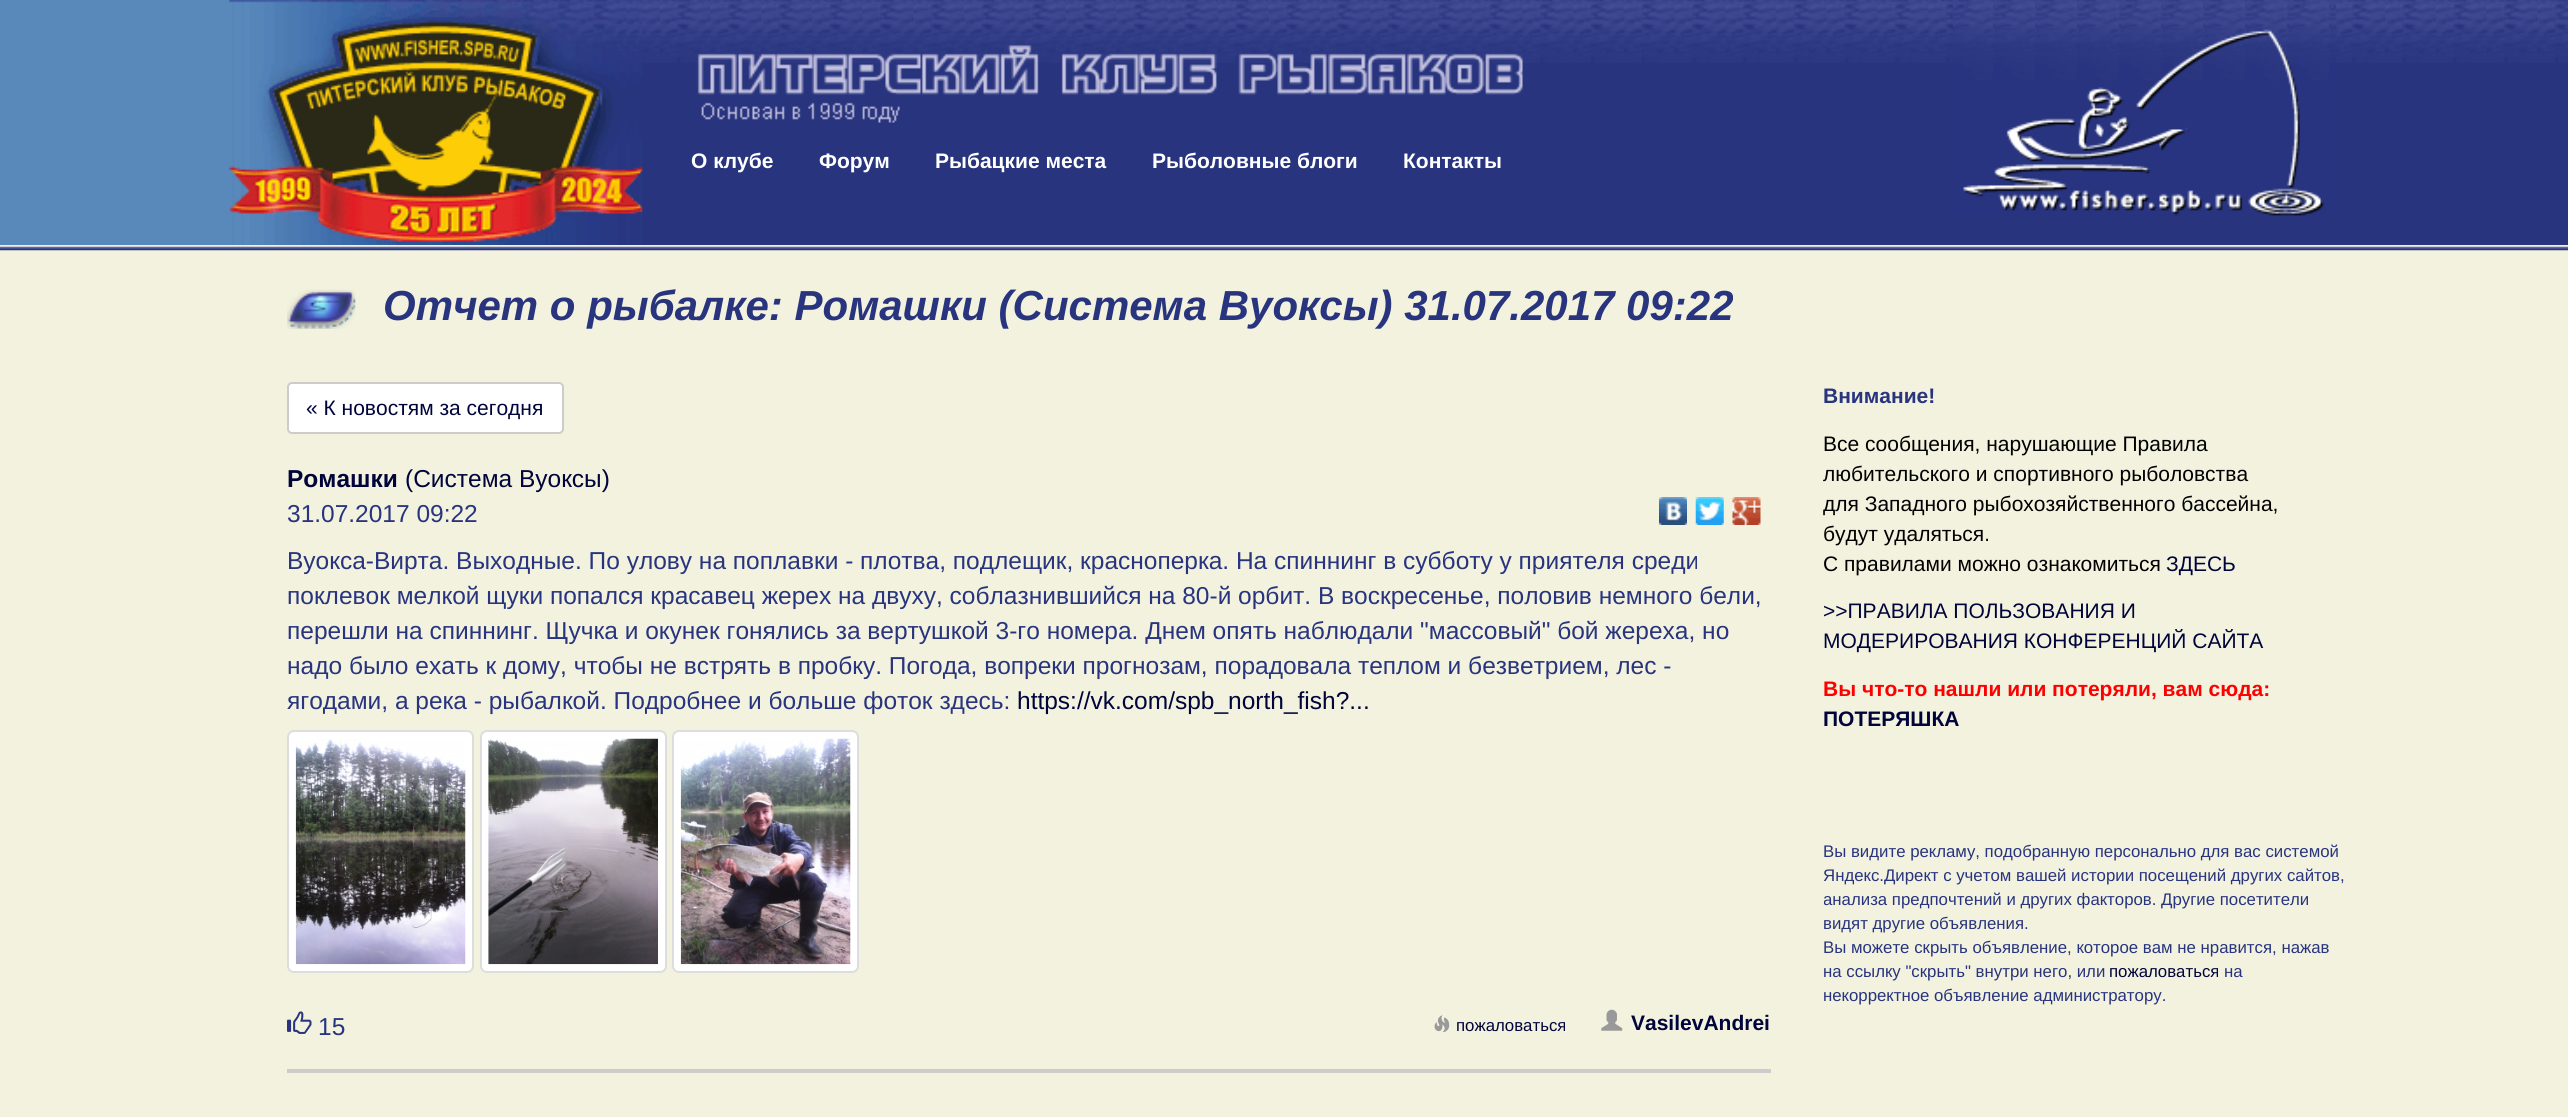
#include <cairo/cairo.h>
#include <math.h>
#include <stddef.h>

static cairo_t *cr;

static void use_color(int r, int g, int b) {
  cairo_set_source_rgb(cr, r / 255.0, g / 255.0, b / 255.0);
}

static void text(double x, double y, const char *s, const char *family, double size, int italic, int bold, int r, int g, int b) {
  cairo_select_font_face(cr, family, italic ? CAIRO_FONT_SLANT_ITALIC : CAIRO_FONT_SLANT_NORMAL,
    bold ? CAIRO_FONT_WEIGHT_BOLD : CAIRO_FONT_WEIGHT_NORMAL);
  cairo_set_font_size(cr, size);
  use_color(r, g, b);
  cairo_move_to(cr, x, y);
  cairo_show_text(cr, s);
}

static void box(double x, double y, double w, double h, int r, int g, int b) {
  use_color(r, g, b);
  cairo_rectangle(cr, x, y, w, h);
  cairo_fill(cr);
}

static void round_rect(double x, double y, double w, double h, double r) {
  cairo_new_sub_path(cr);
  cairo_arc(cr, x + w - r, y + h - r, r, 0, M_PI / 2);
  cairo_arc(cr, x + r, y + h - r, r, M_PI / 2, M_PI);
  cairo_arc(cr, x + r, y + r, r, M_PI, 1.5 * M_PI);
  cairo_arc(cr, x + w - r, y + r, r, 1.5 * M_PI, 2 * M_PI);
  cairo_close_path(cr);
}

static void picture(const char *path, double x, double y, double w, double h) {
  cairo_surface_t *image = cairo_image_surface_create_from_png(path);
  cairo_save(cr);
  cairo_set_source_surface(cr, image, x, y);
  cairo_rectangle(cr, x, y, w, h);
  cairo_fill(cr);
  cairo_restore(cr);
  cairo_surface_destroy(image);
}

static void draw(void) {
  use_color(242, 242, 223);
  cairo_paint(cr);
  picture("img_01.png", 0, 246, 2568, 5);
  box(642, 4, 1926, 241, 40, 52, 126);
  picture("img_02.png", 642, 0, 1926, 63);
  box(0, 0, 230, 245, 89, 137, 187);
  picture("img_03.png", 229, 0, 414, 245);
  picture("img_04.png", 697, 45, 826, 78);
  picture("img_05.png", 1953, 0, 384, 216);
  picture("img_06.png", 287, 289, 69, 40);
  use_color(255, 255, 255);
  round_rect(288, 383, 275, 50, 4);
  cairo_fill_preserve(cr);
  use_color(204, 204, 204);
  cairo_stroke(cr);
  box(287, 1069, 1484, 4, 204, 204, 204);
  picture("img_07.png", 1659, 497, 28, 28);
  picture("img_08.png", 1695, 497, 29, 28);
  picture("img_09.png", 1732, 497, 29, 28);
  use_color(255, 255, 255);
  round_rect(288, 731, 185, 241, 6);
  cairo_fill_preserve(cr);
  use_color(221, 221, 221);
  cairo_stroke(cr);
  picture("img_10.png", 295, 739, 171, 226);
  use_color(255, 255, 255);
  round_rect(481, 731, 185, 241, 6);
  cairo_fill_preserve(cr);
  use_color(221, 221, 221);
  cairo_stroke(cr);
  picture("img_11.png", 488, 738, 170, 227);
  use_color(255, 255, 255);
  round_rect(673, 731, 185, 241, 6);
  cairo_fill_preserve(cr);
  use_color(221, 221, 221);
  cairo_stroke(cr);
  picture("img_12.png", 680, 738, 171, 227);
  picture("img_13.png", 287, 1011, 25, 23);
  picture("img_14.png", 1434, 1015, 16, 18);
  picture("img_15.png", 1601, 1009, 22, 22);
  text(691, 168, "О клубе", "Liberation Sans", 21, 0, 1, 255, 255, 255);
  text(819, 168, "Форум", "Liberation Sans", 21, 0, 1, 255, 255, 255);
  text(935, 168, "Рыбацкие места", "Liberation Sans", 21, 0, 1, 255, 255, 255);
  text(1152, 168, "Рыболовные блоги", "Liberation Sans", 21, 0, 1, 255, 255, 255);
  text(1403, 168, "Контакты", "Liberation Sans", 21, 0, 1, 255, 255, 255);
  text(383, 320, "Отчет о рыбалке: Ромашки (Система Вуоксы) 31.07.2017 09:22", "Liberation Sans", 42, 1, 1, 40, 52, 126);
  text(306, 415, "« К новостям за сегодня", "Liberation Sans", 21, 0, 0, 0, 4, 58);
  text(287, 487, "Ромашки", "Liberation Sans", 24.5, 0, 1, 0, 4, 58);
  text(405, 487, "(Система Вуоксы)", "Liberation Sans", 24.5, 0, 0, 0, 4, 58);
  text(287, 522, "31.07.2017 09:22", "Liberation Sans", 24.5, 0, 0, 40, 52, 126);
  text(287, 569, "Вуокса-Вирта. Выходные. По улову на поплавки - плотва, подлещик, красноперка. На спиннинг в субботу у приятеля среди", "Liberation Sans", 24.5, 0, 0, 40, 52, 126);
  text(287, 604, "поклевок мелкой щуки попался красавец жерех на двуху, соблазнившийся на 80-й орбит. В воскресенье, половив немного бели,", "Liberation Sans", 24.5, 0, 0, 40, 52, 126);
  text(287, 639, "перешли на спиннинг. Щучка и окунек гонялись за вертушкой 3-го номера. Днем опять наблюдали \"массовый\" бой жереха, но", "Liberation Sans", 24.5, 0, 0, 40, 52, 126);
  text(287, 674, "надо было ехать к дому, чтобы не встрять в пробку. Погода, вопреки прогнозам, порадовала теплом и безветрием, лес -", "Liberation Sans", 24.5, 0, 0, 40, 52, 126);
  text(287, 709, "ягодами, а река - рыбалкой. Подробнее и больше фоток здесь:", "Liberation Sans", 24.5, 0, 0, 40, 52, 126);
  text(1017, 709, "https://vk.com/spb_north_fish?...", "Liberation Sans", 24.5, 0, 0, 0, 4, 58);
  text(318, 1035, "15", "Liberation Sans", 24.5, 0, 0, 40, 52, 126);
  text(1456, 1031, "пожаловаться", "Liberation Sans", 16.8, 0, 0, 0, 4, 58);
  text(1631, 1030, "VasilevAndrei", "Liberation Sans", 21, 0, 1, 0, 4, 58);
  text(1823, 403, "Внимание!", "Liberation Sans", 21, 0, 1, 40, 52, 126);
  text(1823, 451, "Все сообщения, нарушающие Правила", "Liberation Sans", 21, 0, 0, 0, 0, 0);
  text(1823, 481, "любительского и спортивного рыболовства", "Liberation Sans", 21, 0, 0, 0, 0, 0);
  text(1823, 511, "для Западного рыбохозяйственного бассейна,", "Liberation Sans", 21, 0, 0, 0, 0, 0);
  text(1823, 541, "будут удаляться.", "Liberation Sans", 21, 0, 0, 0, 0, 0);
  text(1823, 571, "С правилами можно ознакомиться", "Liberation Sans", 21, 0, 0, 0, 0, 0);
  text(2166, 571, "ЗДЕСЬ", "Liberation Sans", 21, 0, 0, 0, 4, 58);
  text(1823, 618, ">>ПРАВИЛА ПОЛЬЗОВАНИЯ И", "Liberation Sans", 21, 0, 0, 0, 4, 58);
  text(1823, 648, "МОДЕРИРОВАНИЯ КОНФЕРЕНЦИЙ САЙТА", "Liberation Sans", 21, 0, 0, 0, 4, 58);
  text(1823, 696, "Вы что-то нашли или потеряли, вам сюда:", "Liberation Sans", 21, 0, 1, 255, 0, 0);
  text(1823, 726, "ПОТЕРЯШКА", "Liberation Sans", 21, 0, 1, 0, 4, 58);
  text(1823, 857, "Вы видите рекламу, подобранную персонально для вас системой", "Liberation Sans", 16.8, 0, 0, 40, 52, 126);
  text(1823, 881, "Яндекс.Директ с учетом вашей истории посещений других сайтов,", "Liberation Sans", 16.8, 0, 0, 40, 52, 126);
  cairo_save(cr);
  cairo_rectangle(cr, 1824, 753, 525, 255);
  cairo_clip(cr);
  text(1823, 905, "анализа предпочтений и других факторов. Другие посетители", "Liberation Sans", 16.8, 0, 0, 40, 52, 126);
  text(1823, 929, "видят другие объявления.", "Liberation Sans", 16.8, 0, 0, 40, 52, 126);
  cairo_restore(cr);
  text(1823, 953, "Вы можете скрыть объявление, которое вам не нравится, нажав", "Liberation Sans", 16.8, 0, 0, 40, 52, 126);
  cairo_save(cr);
  cairo_rectangle(cr, 1824, 753, 525, 255);
  cairo_clip(cr);
  text(1823, 977, "на ссылку \"скрыть\" внутри него, или", "Liberation Sans", 16.8, 0, 0, 40, 52, 126);
  cairo_restore(cr);
  text(2109, 977, "пожаловаться", "Liberation Sans", 16.8, 0, 0, 0, 4, 58);
  text(2224, 977, "на", "Liberation Sans", 16.8, 0, 0, 40, 52, 126);
  cairo_save(cr);
  cairo_rectangle(cr, 1824, 753, 525, 255);
  cairo_clip(cr);
  text(1823, 1001, "некорректное объявление администратору.", "Liberation Sans", 16.8, 0, 0, 40, 52, 126);
  cairo_restore(cr);
}

int main(void) {
  cairo_surface_t *surface = cairo_image_surface_create(CAIRO_FORMAT_RGB24, 2568, 1117);
  cr = cairo_create(surface);
  cairo_font_options_t *options = cairo_font_options_create();
  cairo_font_options_set_hint_metrics(options, CAIRO_HINT_METRICS_OFF);
  cairo_font_options_set_hint_style(options, CAIRO_HINT_STYLE_NONE);
  cairo_set_font_options(cr, options);
  cairo_set_miter_limit(cr, 4);
  draw();
  cairo_surface_write_to_png(surface, "out.png");
  cairo_font_options_destroy(options);
  cairo_destroy(cr);
  cairo_surface_destroy(surface);
  return 0;
}
